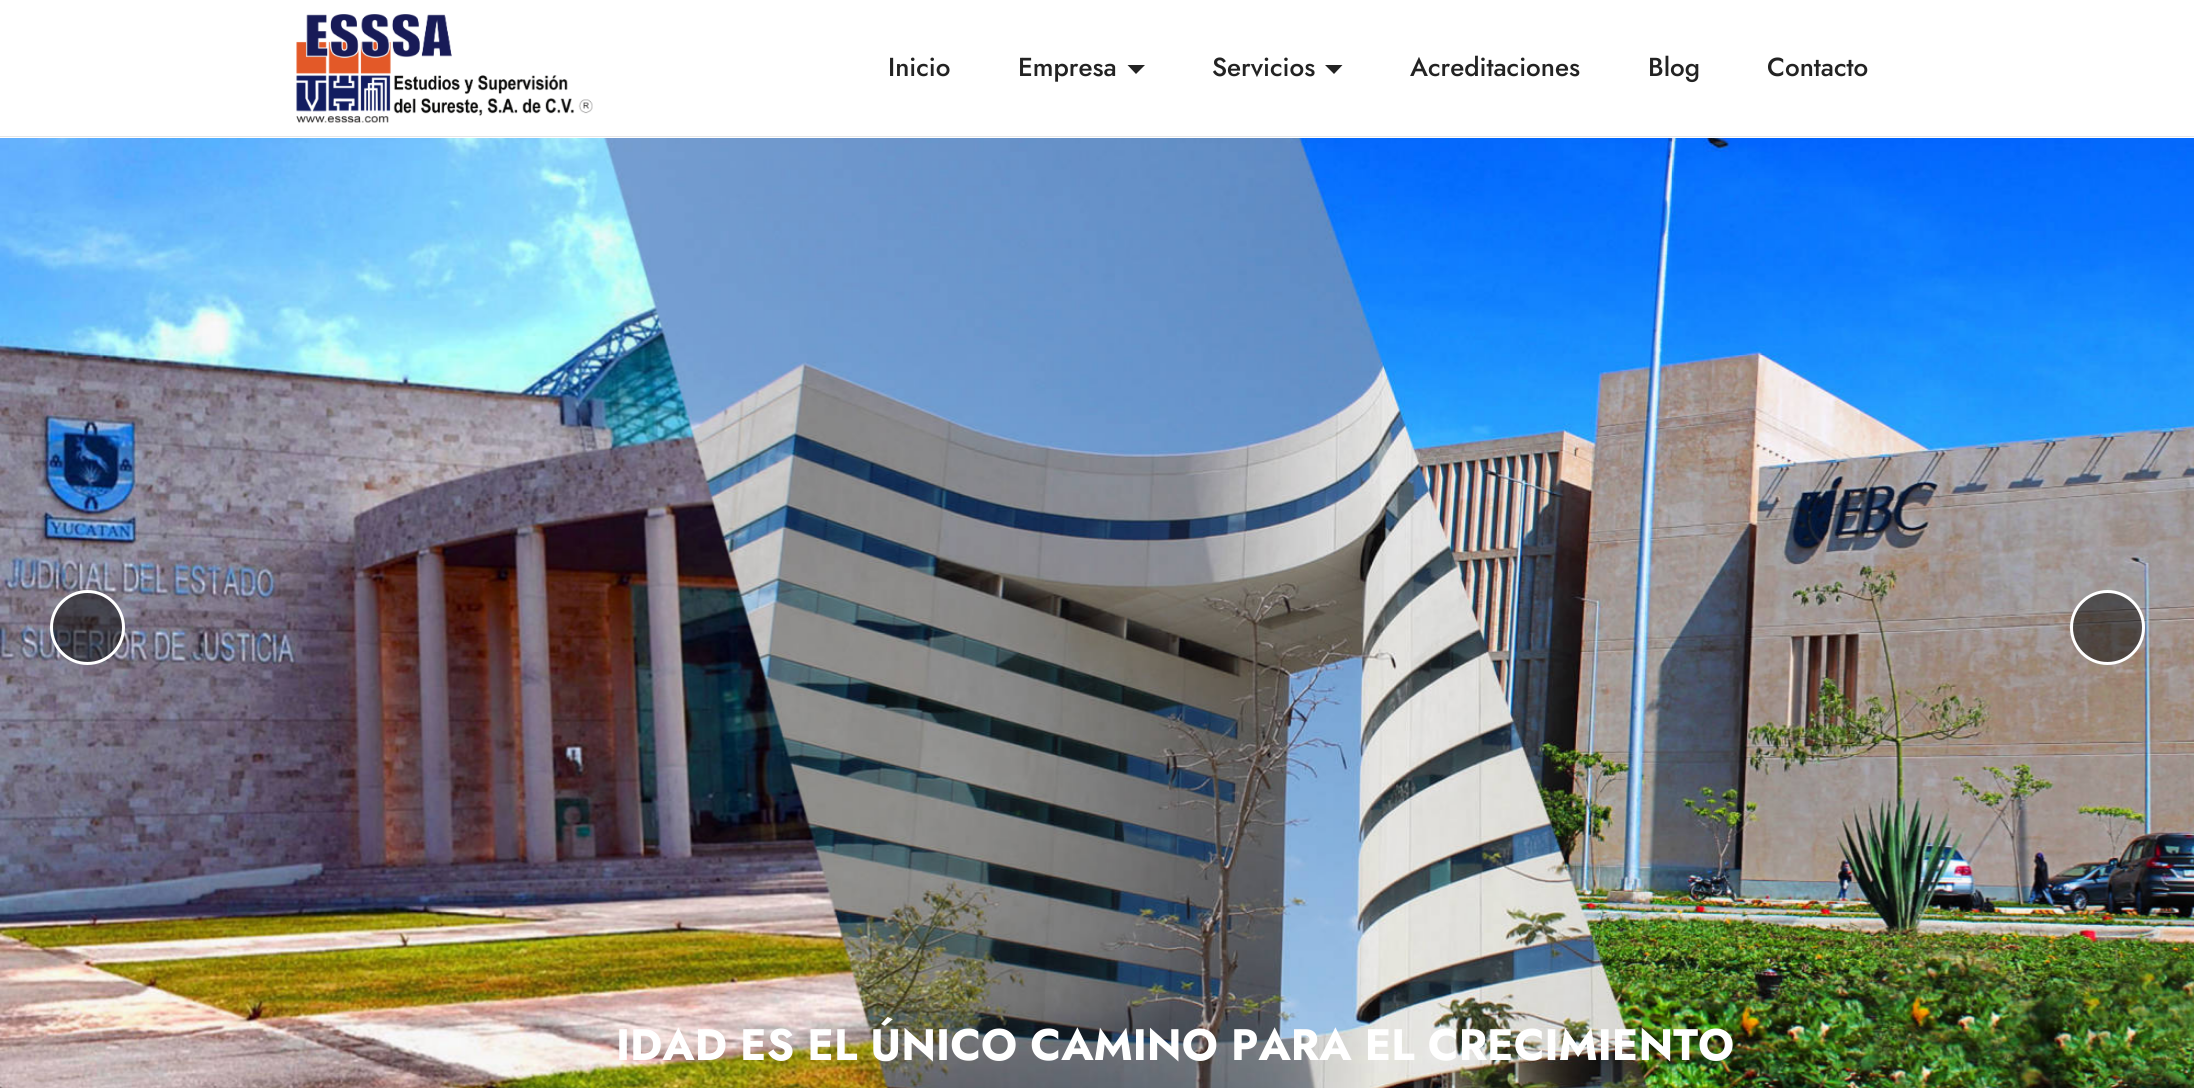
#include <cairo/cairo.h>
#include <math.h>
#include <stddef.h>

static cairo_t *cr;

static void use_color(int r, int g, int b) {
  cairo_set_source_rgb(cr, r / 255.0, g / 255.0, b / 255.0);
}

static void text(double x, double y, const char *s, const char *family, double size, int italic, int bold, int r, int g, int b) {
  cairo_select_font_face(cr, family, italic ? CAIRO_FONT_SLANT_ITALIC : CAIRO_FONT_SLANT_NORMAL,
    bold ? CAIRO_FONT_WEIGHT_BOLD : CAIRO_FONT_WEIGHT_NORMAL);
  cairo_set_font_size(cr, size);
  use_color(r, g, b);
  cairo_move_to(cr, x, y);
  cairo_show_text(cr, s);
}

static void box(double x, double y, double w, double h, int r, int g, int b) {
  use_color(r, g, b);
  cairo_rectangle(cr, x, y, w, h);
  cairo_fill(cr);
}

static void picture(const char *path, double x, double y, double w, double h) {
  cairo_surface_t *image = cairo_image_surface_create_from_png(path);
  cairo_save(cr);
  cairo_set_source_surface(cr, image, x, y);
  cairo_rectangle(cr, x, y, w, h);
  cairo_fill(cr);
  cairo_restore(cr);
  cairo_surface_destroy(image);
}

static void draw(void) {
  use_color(255, 255, 255);
  cairo_paint(cr);
  box(0, 136, 2194, 1, 230, 230, 230);
  picture("img_01.png", 296, 14, 297, 109);
  use_color(35, 35, 35);
  cairo_new_path(cr);
  cairo_move_to(cr, 1127.5, 65);
  cairo_line_to(cr, 1145, 65);
  cairo_line_to(cr, 1136, 74);
  cairo_close_path(cr);
  cairo_fill(cr);
  cairo_new_path(cr);
  cairo_move_to(cr, 1325, 65);
  cairo_line_to(cr, 1342.5, 65);
  cairo_line_to(cr, 1334, 74);
  cairo_close_path(cr);
  cairo_fill(cr);
  picture("img_02.png", 0, 138, 2194, 950);
  cairo_set_source_rgba(cr, 0, 0, 0, 0.5);
  cairo_arc(cr, 87.5, 627.5, 36, 0, 2 * M_PI);
  cairo_fill_preserve(cr);
  use_color(255, 255, 255);
  cairo_set_line_width(cr, 3);
  cairo_stroke(cr);
  cairo_set_source_rgba(cr, 0, 0, 0, 0.5);
  cairo_arc(cr, 2107.5, 627.5, 36, 0, 2 * M_PI);
  cairo_fill_preserve(cr);
  use_color(255, 255, 255);
  cairo_stroke(cr);
  text(888, 76, "Inicio", "Jost Medium", 26, 0, 0, 35, 35, 35);
  text(1018, 76, "Empresa", "Jost Medium", 26, 0, 0, 35, 35, 35);
  text(1212, 76, "Servicios", "Jost Medium", 26, 0, 0, 35, 35, 35);
  text(1410, 76, "Acreditaciones", "Jost Medium", 26, 0, 0, 35, 35, 35);
  text(1648, 76, "Blog", "Jost Medium", 26, 0, 0, 35, 35, 35);
  text(1767, 76, "Contacto", "Jost Medium", 26, 0, 0, 35, 35, 35);
  text(616, 1060, "IDAD ES EL ÚNICO CAMINO PARA EL CRECIMIENTO", "Jost", 44, 0, 1, 255, 255, 255);
}

int main(void) {
  cairo_surface_t *surface = cairo_image_surface_create(CAIRO_FORMAT_RGB24, 2194, 1088);
  cr = cairo_create(surface);
  cairo_font_options_t *options = cairo_font_options_create();
  cairo_font_options_set_hint_metrics(options, CAIRO_HINT_METRICS_OFF);
  cairo_font_options_set_hint_style(options, CAIRO_HINT_STYLE_NONE);
  cairo_set_font_options(cr, options);
  cairo_set_miter_limit(cr, 4);
  draw();
  cairo_surface_write_to_png(surface, "out.png");
  cairo_font_options_destroy(options);
  cairo_destroy(cr);
  cairo_surface_destroy(surface);
  return 0;
}
